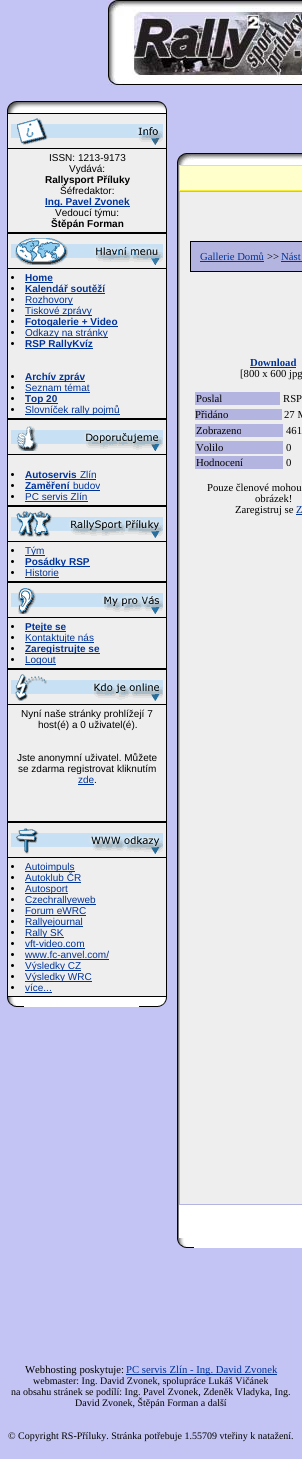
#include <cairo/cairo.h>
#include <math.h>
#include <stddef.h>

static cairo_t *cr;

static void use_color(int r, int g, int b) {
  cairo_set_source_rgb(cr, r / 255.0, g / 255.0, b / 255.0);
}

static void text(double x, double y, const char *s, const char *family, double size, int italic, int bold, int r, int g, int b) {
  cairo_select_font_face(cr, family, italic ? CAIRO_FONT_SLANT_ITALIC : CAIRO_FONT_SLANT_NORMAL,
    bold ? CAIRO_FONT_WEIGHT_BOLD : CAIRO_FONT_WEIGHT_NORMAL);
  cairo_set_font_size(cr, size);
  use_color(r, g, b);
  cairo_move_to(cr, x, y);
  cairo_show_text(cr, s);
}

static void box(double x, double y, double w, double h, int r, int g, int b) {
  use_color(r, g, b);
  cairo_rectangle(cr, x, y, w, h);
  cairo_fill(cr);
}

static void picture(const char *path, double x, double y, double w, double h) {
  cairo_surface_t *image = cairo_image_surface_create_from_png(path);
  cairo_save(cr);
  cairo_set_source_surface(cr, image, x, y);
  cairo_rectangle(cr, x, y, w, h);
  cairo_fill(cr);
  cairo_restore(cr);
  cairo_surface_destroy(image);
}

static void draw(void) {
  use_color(196, 196, 244);
  cairo_paint(cr);
  picture("img_01.png", 108, 0, 194, 85);
  picture("img_02.png", 7, 101, 17, 12);
  picture("img_03.png", 24, 101, 115, 12);
  picture("img_04.png", 139, 101, 28, 12);
  box(7, 113, 160, 884, 0, 0, 0);
  box(8, 114, 158, 34, 238, 238, 238);
  picture("img_05.png", 11, 118, 152, 27);
  box(8, 149, 158, 83, 238, 238, 238);
  box(45, 206, 85, 1, 0, 51, 153);
  box(8, 234, 158, 34, 238, 238, 238);
  picture("img_06.png", 11, 238, 152, 27);
  box(8, 269, 158, 149, 238, 238, 238);
  use_color(0, 0, 0);
  cairo_arc(cr, 12.5, 277.5, 1.5, 0, 2 * M_PI);
  cairo_fill(cr);
  box(25, 282, 28, 1, 0, 51, 153);
  use_color(0, 0, 0);
  cairo_arc(cr, 12.5, 288.5, 1.5, 0, 2 * M_PI);
  cairo_fill(cr);
  box(25, 293, 80, 1, 0, 51, 153);
  use_color(0, 0, 0);
  cairo_arc(cr, 12.5, 299.5, 1.5, 0, 2 * M_PI);
  cairo_fill(cr);
  box(25, 304, 48, 1, 0, 51, 153);
  use_color(0, 0, 0);
  cairo_arc(cr, 12.5, 310.5, 1.5, 0, 2 * M_PI);
  cairo_fill(cr);
  box(25, 315, 67, 1, 0, 51, 153);
  use_color(0, 0, 0);
  cairo_arc(cr, 12.5, 321.5, 1.5, 0, 2 * M_PI);
  cairo_fill(cr);
  box(25, 326, 93, 1, 0, 51, 153);
  use_color(0, 0, 0);
  cairo_arc(cr, 12.5, 332.5, 1.5, 0, 2 * M_PI);
  cairo_fill(cr);
  box(25, 337, 83, 1, 0, 51, 153);
  use_color(0, 0, 0);
  cairo_arc(cr, 12.5, 343.5, 1.5, 0, 2 * M_PI);
  cairo_fill(cr);
  box(25, 348, 68, 1, 0, 51, 153);
  use_color(0, 0, 0);
  cairo_arc(cr, 12.5, 376.5, 1.5, 0, 2 * M_PI);
  cairo_fill(cr);
  box(25, 381, 60, 1, 0, 51, 153);
  use_color(0, 0, 0);
  cairo_arc(cr, 12.5, 387.5, 1.5, 0, 2 * M_PI);
  cairo_fill(cr);
  box(25, 392, 65, 1, 0, 51, 153);
  use_color(0, 0, 0);
  cairo_arc(cr, 12.5, 398.5, 1.5, 0, 2 * M_PI);
  cairo_fill(cr);
  box(25, 403, 33, 1, 0, 51, 153);
  use_color(0, 0, 0);
  cairo_arc(cr, 12.5, 409.5, 1.5, 0, 2 * M_PI);
  cairo_fill(cr);
  box(25, 414, 95, 1, 0, 51, 153);
  box(8, 420, 158, 34, 238, 238, 238);
  picture("img_07.png", 11, 426, 152, 25);
  box(8, 455, 158, 50, 238, 238, 238);
  use_color(0, 0, 0);
  cairo_arc(cr, 12.5, 474.5, 1.5, 0, 2 * M_PI);
  cairo_fill(cr);
  box(25, 479, 71, 1, 0, 51, 153);
  use_color(0, 0, 0);
  cairo_arc(cr, 12.5, 485.5, 1.5, 0, 2 * M_PI);
  cairo_fill(cr);
  box(25, 490, 75, 1, 0, 51, 153);
  use_color(0, 0, 0);
  cairo_arc(cr, 12.5, 496.5, 1.5, 0, 2 * M_PI);
  cairo_fill(cr);
  box(25, 501, 63, 1, 0, 51, 153);
  box(8, 507, 158, 34, 238, 238, 238);
  picture("img_08.png", 11, 511, 152, 27);
  box(8, 542, 158, 39, 238, 238, 238);
  use_color(0, 0, 0);
  cairo_arc(cr, 12.5, 550.5, 1.5, 0, 2 * M_PI);
  cairo_fill(cr);
  box(25, 555, 20, 1, 0, 51, 153);
  use_color(0, 0, 0);
  cairo_arc(cr, 12.5, 561.5, 1.5, 0, 2 * M_PI);
  cairo_fill(cr);
  box(25, 566, 65, 1, 0, 51, 153);
  use_color(0, 0, 0);
  cairo_arc(cr, 12.5, 572.5, 1.5, 0, 2 * M_PI);
  cairo_fill(cr);
  box(25, 577, 34, 1, 0, 51, 153);
  box(8, 583, 158, 34, 238, 238, 238);
  picture("img_09.png", 11, 588, 152, 26);
  box(8, 618, 158, 50, 238, 238, 238);
  use_color(0, 0, 0);
  cairo_arc(cr, 12.5, 626.5, 1.5, 0, 2 * M_PI);
  cairo_fill(cr);
  box(25, 631, 41, 1, 0, 51, 153);
  use_color(0, 0, 0);
  cairo_arc(cr, 12.5, 637.5, 1.5, 0, 2 * M_PI);
  cairo_fill(cr);
  box(25, 642, 69, 1, 0, 51, 153);
  use_color(0, 0, 0);
  cairo_arc(cr, 12.5, 648.5, 1.5, 0, 2 * M_PI);
  cairo_fill(cr);
  box(25, 653, 75, 1, 0, 51, 153);
  use_color(0, 0, 0);
  cairo_arc(cr, 12.5, 659.5, 1.5, 0, 2 * M_PI);
  cairo_fill(cr);
  box(25, 664, 31, 1, 0, 51, 153);
  box(8, 670, 158, 34, 238, 238, 238);
  picture("img_10.png", 11, 674, 152, 27);
  box(8, 705, 158, 116, 238, 238, 238);
  box(78, 784, 16, 1, 0, 51, 153);
  box(8, 823, 158, 34, 238, 238, 238);
  picture("img_11.png", 11, 828, 152, 26);
  box(8, 858, 158, 138, 238, 238, 238);
  use_color(0, 0, 0);
  cairo_arc(cr, 12.5, 866.5, 1.5, 0, 2 * M_PI);
  cairo_fill(cr);
  box(25, 871, 50, 1, 0, 51, 153);
  use_color(0, 0, 0);
  cairo_arc(cr, 12.5, 877.5, 1.5, 0, 2 * M_PI);
  cairo_fill(cr);
  box(25, 882, 56, 1, 0, 51, 153);
  use_color(0, 0, 0);
  cairo_arc(cr, 12.5, 888.5, 1.5, 0, 2 * M_PI);
  cairo_fill(cr);
  box(25, 893, 43, 1, 0, 51, 153);
  use_color(0, 0, 0);
  cairo_arc(cr, 12.5, 899.5, 1.5, 0, 2 * M_PI);
  cairo_fill(cr);
  box(25, 904, 71, 1, 0, 51, 153);
  use_color(0, 0, 0);
  cairo_arc(cr, 12.5, 910.5, 1.5, 0, 2 * M_PI);
  cairo_fill(cr);
  box(25, 915, 61, 1, 0, 51, 153);
  use_color(0, 0, 0);
  cairo_arc(cr, 12.5, 921.5, 1.5, 0, 2 * M_PI);
  cairo_fill(cr);
  box(25, 926, 58, 1, 0, 51, 153);
  use_color(0, 0, 0);
  cairo_arc(cr, 12.5, 932.5, 1.5, 0, 2 * M_PI);
  cairo_fill(cr);
  box(25, 937, 39, 1, 0, 51, 153);
  use_color(0, 0, 0);
  cairo_arc(cr, 12.5, 943.5, 1.5, 0, 2 * M_PI);
  cairo_fill(cr);
  box(25, 948, 60, 1, 0, 51, 153);
  use_color(0, 0, 0);
  cairo_arc(cr, 12.5, 954.5, 1.5, 0, 2 * M_PI);
  cairo_fill(cr);
  box(25, 959, 84, 1, 0, 51, 153);
  use_color(0, 0, 0);
  cairo_arc(cr, 12.5, 965.5, 1.5, 0, 2 * M_PI);
  cairo_fill(cr);
  box(25, 970, 56, 1, 0, 51, 153);
  use_color(0, 0, 0);
  cairo_arc(cr, 12.5, 976.5, 1.5, 0, 2 * M_PI);
  cairo_fill(cr);
  box(25, 981, 67, 1, 0, 51, 153);
  use_color(0, 0, 0);
  cairo_arc(cr, 12.5, 987.5, 1.5, 0, 2 * M_PI);
  cairo_fill(cr);
  box(25, 992, 27, 1, 0, 51, 153);
  picture("img_12.png", 7, 997, 17, 10);
  box(24, 997, 115, 10, 255, 255, 255);
  picture("img_13.png", 139, 997, 28, 10);
  picture("img_14.png", 177, 153, 17, 12);
  picture("img_15.png", 194, 153, 108, 12);
  picture("img_16.png", 177, 165, 2, 1073);
  box(179, 1205, 123, 33, 255, 255, 255);
  box(179, 165, 123, 26, 246, 235, 52);
  box(180, 166, 122, 24, 255, 255, 204);
  box(179, 191, 123, 1014, 180, 180, 224);
  box(180, 192, 122, 1012, 238, 238, 238);
  box(190, 241, 112, 31, 0, 0, 0);
  box(191, 242, 111, 29, 180, 180, 224);
  box(200, 261, 64, 1, 0, 51, 153);
  box(281, 261, 21, 1, 0, 51, 153);
  box(250, 367, 46, 1, 0, 51, 153);
  box(195, 392, 85, 13, 180, 180, 224);
  box(195, 409, 87, 11, 180, 180, 224);
  box(195, 424, 88, 13, 180, 180, 224);
  box(195, 441, 88, 13, 180, 180, 224);
  box(195, 456, 88, 13, 180, 180, 224);
  box(296, 514, 6, 1, 0, 51, 153);
  picture("img_12.png", 177, 1238, 17, 10);
  box(194, 1238, 108, 10, 255, 255, 255);
  box(126, 1374, 151, 1, 0, 51, 153);
  text(49, 161, "ISSN: 1213-9173", "Liberation Sans", 10, 0, 0, 0, 0, 0);
  text(69, 172, "Vydává:", "Liberation Sans", 10, 0, 0, 0, 0, 0);
  text(45, 183, "Rallysport Příluky", "Liberation Sans", 10, 0, 1, 0, 0, 0);
  text(60, 194, "Šéfredaktor:", "Liberation Sans", 10, 0, 0, 0, 0, 0);
  text(45, 205, "Ing. Pavel Zvonek", "Liberation Sans", 10, 0, 1, 0, 51, 153);
  text(55, 216, "Vedoucí týmu:", "Liberation Sans", 10, 0, 0, 0, 0, 0);
  text(51, 227, "Štěpán Forman", "Liberation Sans", 10, 0, 1, 0, 0, 0);
  text(25, 281, "Home", "Liberation Sans", 10, 0, 1, 0, 51, 153);
  text(25, 292, "Kalendář soutěží", "Liberation Sans", 10, 0, 1, 0, 51, 153);
  text(25, 303, "Rozhovory", "Liberation Sans", 10, 0, 0, 0, 51, 153);
  text(25, 314, "Tiskové zprávy", "Liberation Sans", 10, 0, 0, 0, 51, 153);
  text(25, 325, "Fotogalerie + Video", "Liberation Sans", 10, 0, 1, 0, 51, 153);
  text(25, 336, "Odkazy na stránky", "Liberation Sans", 10, 0, 0, 0, 51, 153);
  text(25, 347, "RSP RallyKvíz", "Liberation Sans", 10, 0, 1, 0, 51, 153);
  text(25, 380, "Archív zpráv", "Liberation Sans", 10, 0, 1, 0, 51, 153);
  text(25, 391, "Seznam témat", "Liberation Sans", 10, 0, 0, 0, 51, 153);
  text(25, 402, "Top 20", "Liberation Sans", 10, 0, 1, 0, 51, 153);
  text(25, 413, "Slovníček rally pojmů", "Liberation Sans", 10, 0, 0, 0, 51, 153);
  text(25, 478, "Autoservis", "Liberation Sans", 10, 0, 1, 0, 51, 153);
  text(80, 478, "Zlín", "Liberation Sans", 10, 0, 0, 0, 51, 153);
  text(25, 489, "Zaměření", "Liberation Sans", 10, 0, 1, 0, 51, 153);
  text(73, 489, "budov", "Liberation Sans", 10, 0, 0, 0, 51, 153);
  text(25, 500, "PC servis Zlín", "Liberation Sans", 10, 0, 0, 0, 51, 153);
  text(25, 554, "Tým", "Liberation Sans", 10, 0, 0, 0, 51, 153);
  text(25, 565, "Posádky RSP", "Liberation Sans", 10, 0, 1, 0, 51, 153);
  text(25, 576, "Historie", "Liberation Sans", 10, 0, 0, 0, 51, 153);
  text(25, 630, "Ptejte se", "Liberation Sans", 10, 0, 1, 0, 51, 153);
  text(25, 641, "Kontaktujte nás", "Liberation Sans", 10, 0, 0, 0, 51, 153);
  text(25, 652, "Zaregistrujte se", "Liberation Sans", 10, 0, 1, 0, 51, 153);
  text(25, 663, "Logout", "Liberation Sans", 10, 0, 0, 0, 51, 153);
  text(21, 717, "Nyní naše stránky prohlížejí 7", "Liberation Sans", 10, 0, 0, 0, 0, 0);
  text(38, 728, "host(é) a 0 uživatel(é).", "Liberation Sans", 10, 0, 0, 0, 0, 0);
  text(17, 761, "Jste anonymní uživatel. Můžete", "Liberation Sans", 10, 0, 0, 0, 0, 0);
  text(18, 772, "se zdarma registrovat kliknutím", "Liberation Sans", 10, 0, 0, 0, 0, 0);
  text(78, 783, "zde", "Liberation Sans", 10, 0, 0, 0, 51, 153);
  text(94, 783, ".", "Liberation Sans", 10, 0, 0, 0, 0, 0);
  text(25, 870, "Autoimpuls", "Liberation Sans", 10, 0, 0, 0, 51, 153);
  text(25, 881, "Autoklub ČR", "Liberation Sans", 10, 0, 0, 0, 51, 153);
  text(25, 892, "Autosport", "Liberation Sans", 10, 0, 0, 0, 51, 153);
  text(25, 903, "Czechrallyeweb", "Liberation Sans", 10, 0, 0, 0, 51, 153);
  text(25, 914, "Forum eWRC", "Liberation Sans", 10, 0, 0, 0, 51, 153);
  text(25, 925, "Rallyejournal", "Liberation Sans", 10, 0, 0, 0, 51, 153);
  text(25, 936, "Rally SK", "Liberation Sans", 10, 0, 0, 0, 51, 153);
  text(25, 947, "vft-video.com", "Liberation Sans", 10, 0, 0, 0, 51, 153);
  text(25, 958, "www.fc-anvel.com/", "Liberation Sans", 10, 0, 0, 0, 51, 153);
  text(25, 969, "Výsledky CZ", "Liberation Sans", 10, 0, 0, 0, 51, 153);
  text(25, 980, "Výsledky WRC", "Liberation Sans", 10, 0, 0, 0, 51, 153);
  text(25, 991, "více...", "Liberation Sans", 10, 0, 0, 0, 51, 153);
  text(200, 260, "Gallerie Domů", "Liberation Serif", 10.7, 0, 0, 0, 51, 153);
  text(267, 260, ">>", "Liberation Serif", 10.7, 0, 0, 0, 0, 0);
  text(281, 260, "Nást", "Liberation Serif", 10.7, 0, 0, 0, 51, 153);
  text(250, 366, "Download", "Liberation Serif", 10.7, 0, 1, 0, 51, 153);
  text(240, 377, "[800 x 600 jpg", "Liberation Serif", 10.7, 0, 0, 0, 0, 0);
  text(196, 402, "Poslal", "Liberation Serif", 10.7, 0, 0, 0, 0, 0);
  text(283, 402, "RSP", "Liberation Serif", 10.7, 0, 0, 0, 0, 0);
  text(195, 418, "Přidáno", "Liberation Serif", 10.7, 0, 0, 0, 0, 0);
  text(284, 418, "27 M", "Liberation Serif", 10.7, 0, 0, 0, 0, 0);
  text(196, 434, "Zobrazeno", "Liberation Serif", 10.7, 0, 0, 0, 0, 0);
  text(286, 434, "461", "Liberation Serif", 10.7, 0, 0, 0, 0, 0);
  text(196, 451, "Volilo", "Liberation Serif", 10.7, 0, 0, 0, 0, 0);
  text(286, 451, "0", "Liberation Serif", 10.7, 0, 0, 0, 0, 0);
  text(196, 466, "Hodnocení", "Liberation Serif", 10.7, 0, 0, 0, 0, 0);
  text(286, 466, "0", "Liberation Serif", 10.7, 0, 0, 0, 0, 0);
  text(207, 491, "Pouze členové mohou", "Liberation Serif", 10.7, 0, 0, 0, 0, 0);
  text(255, 502, "obrázek!", "Liberation Serif", 10.7, 0, 0, 0, 0, 0);
  text(235, 513, "Zaregistruj se", "Liberation Serif", 10.7, 0, 0, 0, 0, 0);
  text(296, 513, "Z", "Liberation Serif", 10.7, 0, 0, 0, 51, 153);
  text(25, 1373, "Webhosting poskytuje:", "Liberation Serif", 10.7, 0, 0, 0, 0, 0);
  text(126, 1373, "PC servis Zlín - Ing. David Zvonek", "Liberation Serif", 10.7, 0, 0, 0, 51, 153);
  text(33, 1384, "webmaster: Ing. David Zvonek, spolupráce Lukáš Vičánek", "Liberation Serif", 10, 0, 0, 0, 0, 0);
  text(11, 1395, "na obsahu stránek se podílí: Ing. Pavel Zvonek, Zdeněk Vladyka, Ing.", "Liberation Serif", 10, 0, 0, 0, 0, 0);
  text(75, 1406, "David Zvonek, Štěpán Forman a další", "Liberation Serif", 10, 0, 0, 0, 0, 0);
  text(8, 1439, "© Copyright RS-Příluky. Stránka potřebuje 1.55709 vteřiny k natažení.", "Liberation Serif", 10, 0, 0, 0, 0, 0);
}

int main(void) {
  cairo_surface_t *surface = cairo_image_surface_create(CAIRO_FORMAT_RGB24, 302, 1459);
  cr = cairo_create(surface);
  cairo_font_options_t *options = cairo_font_options_create();
  cairo_font_options_set_hint_metrics(options, CAIRO_HINT_METRICS_OFF);
  cairo_font_options_set_hint_style(options, CAIRO_HINT_STYLE_NONE);
  cairo_set_font_options(cr, options);
  cairo_set_miter_limit(cr, 4);
  draw();
  cairo_surface_write_to_png(surface, "out.png");
  cairo_font_options_destroy(options);
  cairo_destroy(cr);
  cairo_surface_destroy(surface);
  return 0;
}
